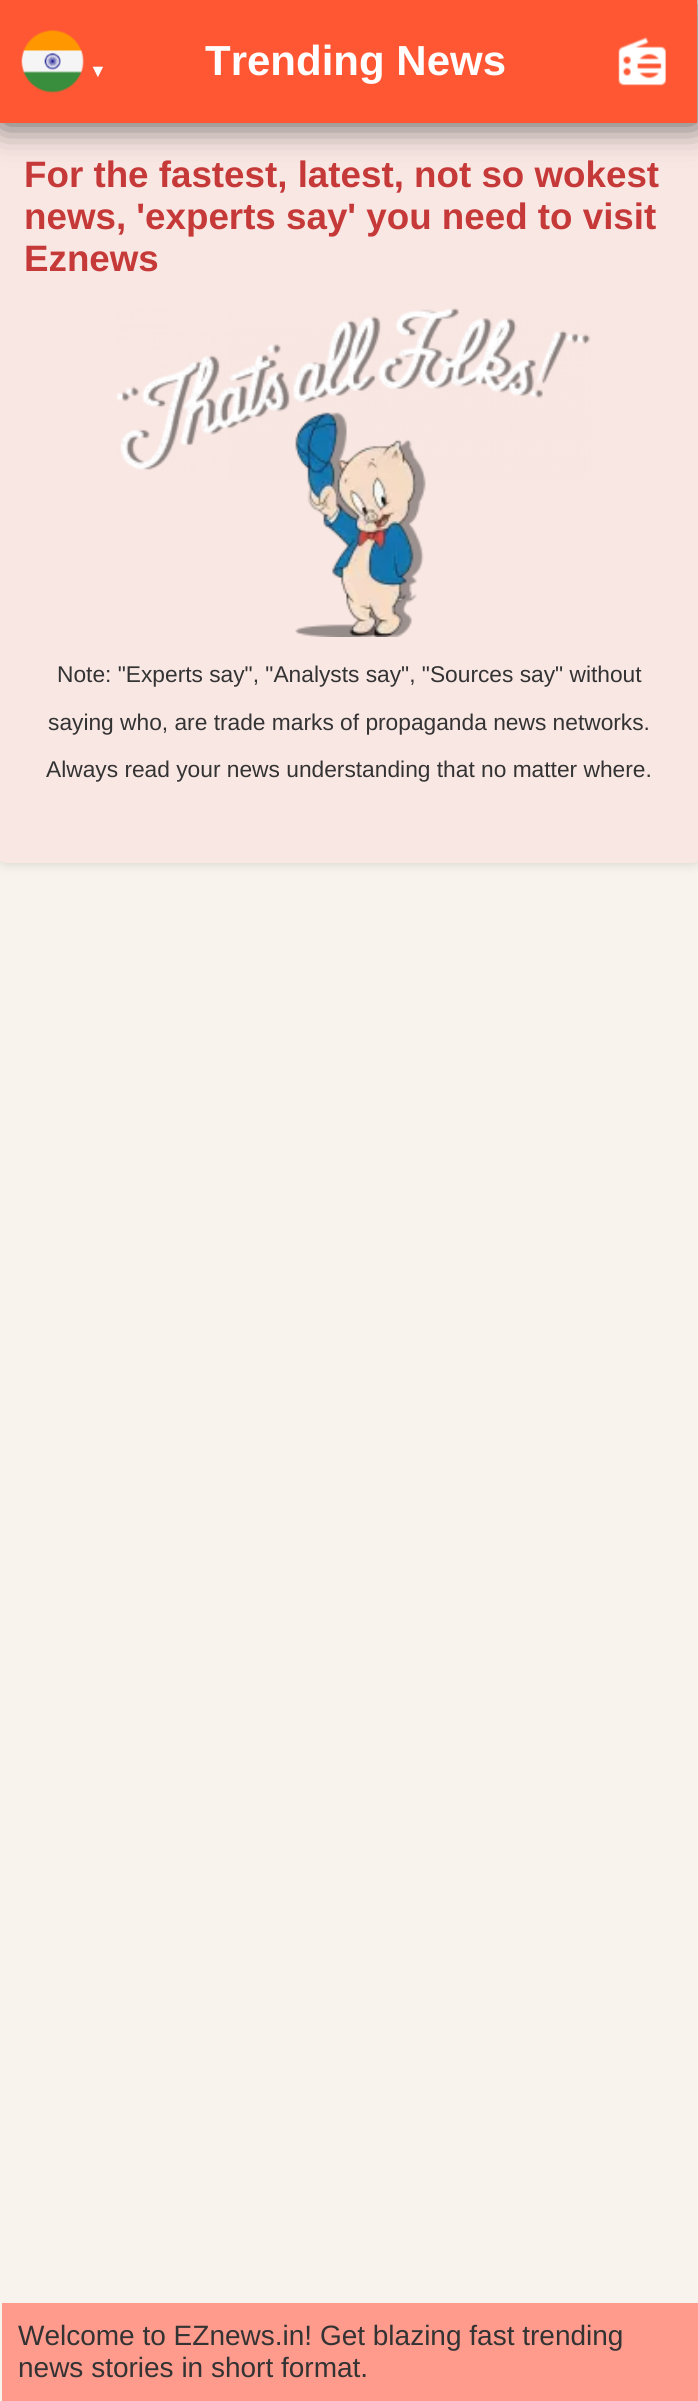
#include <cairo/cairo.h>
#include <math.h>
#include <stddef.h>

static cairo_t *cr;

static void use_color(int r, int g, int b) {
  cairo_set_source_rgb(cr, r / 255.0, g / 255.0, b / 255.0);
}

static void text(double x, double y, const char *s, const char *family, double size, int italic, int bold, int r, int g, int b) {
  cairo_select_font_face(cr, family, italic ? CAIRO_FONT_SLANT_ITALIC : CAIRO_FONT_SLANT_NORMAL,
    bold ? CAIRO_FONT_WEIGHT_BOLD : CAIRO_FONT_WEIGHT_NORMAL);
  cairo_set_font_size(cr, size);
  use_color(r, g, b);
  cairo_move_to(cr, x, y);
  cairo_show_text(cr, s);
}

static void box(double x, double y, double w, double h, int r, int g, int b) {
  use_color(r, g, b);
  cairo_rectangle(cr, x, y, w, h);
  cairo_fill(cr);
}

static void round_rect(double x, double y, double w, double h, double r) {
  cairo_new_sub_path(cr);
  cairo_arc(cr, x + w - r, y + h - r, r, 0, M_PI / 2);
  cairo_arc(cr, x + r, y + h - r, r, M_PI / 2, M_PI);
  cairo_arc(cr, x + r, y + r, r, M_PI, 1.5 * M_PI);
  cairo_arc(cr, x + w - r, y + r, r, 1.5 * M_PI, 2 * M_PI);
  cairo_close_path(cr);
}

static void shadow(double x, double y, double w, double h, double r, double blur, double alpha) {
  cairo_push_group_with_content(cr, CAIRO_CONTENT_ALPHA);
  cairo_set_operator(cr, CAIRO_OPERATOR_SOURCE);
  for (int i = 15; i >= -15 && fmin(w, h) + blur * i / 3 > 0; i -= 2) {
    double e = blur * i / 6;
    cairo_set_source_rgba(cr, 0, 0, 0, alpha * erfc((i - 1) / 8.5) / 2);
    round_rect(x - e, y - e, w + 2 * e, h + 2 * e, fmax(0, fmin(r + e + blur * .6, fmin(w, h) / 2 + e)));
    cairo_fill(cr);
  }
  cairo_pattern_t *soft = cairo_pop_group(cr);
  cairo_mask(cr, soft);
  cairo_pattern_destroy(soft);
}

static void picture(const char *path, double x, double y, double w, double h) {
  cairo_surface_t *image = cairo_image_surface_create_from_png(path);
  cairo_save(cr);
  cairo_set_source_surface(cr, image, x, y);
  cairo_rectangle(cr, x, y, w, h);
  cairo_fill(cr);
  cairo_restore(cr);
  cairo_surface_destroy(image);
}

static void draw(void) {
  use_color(248, 244, 237);
  cairo_paint(cr);
  use_color(0, 0, 0);
  shadow(-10, 18, 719, 848, 18, 4.5, 0.1);
  use_color(249, 231, 227);
  round_rect(-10, 14, 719, 849, 18);
  cairo_fill(cr);
  use_color(85, 85, 85);
  shadow(2, 2, 696, 122, 0, 17.5, 1);
  box(0, 0, 697, 123, 255, 87, 51);
  picture("img_01.png", 21, 30, 63, 63);
  picture("img_02.png", 618, 37, 48, 49);
  picture("img_03.png", 116, 308, 475, 329);
  box(2, 2303, 696, 98, 255, 155, 141);
  text(89, 77, "▼", "Liberation Sans", 18, 0, 0, 255, 255, 255);
  text(205, 75, "Trending News", "Liberation Sans", 42, 0, 1, 255, 255, 255);
  text(24, 187, "For the fastest, latest, not so wokest", "Liberation Sans", 36.75, 0, 1, 198, 57, 57);
  text(24, 229, "news, 'experts say' you need to visit", "Liberation Sans", 36.75, 0, 1, 198, 57, 57);
  text(24, 271, "Eznews", "Liberation Sans", 36.75, 0, 1, 198, 57, 57);
  text(57, 682, "Note: \"Experts say\", \"Analysts say\", \"Sources say\" without", "Liberation Sans", 22.75, 0, 0, 51, 51, 51);
  text(48, 730, "saying who, are trade marks of propaganda news networks.", "Liberation Sans", 22.75, 0, 0, 51, 51, 51);
  text(46, 777, "Always read your news understanding that no matter where.", "Liberation Sans", 22.75, 0, 0, 51, 51, 51);
  text(18, 2345, "Welcome to EZnews.in! Get blazing fast trending", "Liberation Sans", 28, 0, 0, 51, 51, 51);
  text(18, 2377, "news stories in short format.", "Liberation Sans", 28, 0, 0, 51, 51, 51);
}

int main(void) {
  cairo_surface_t *surface = cairo_image_surface_create(CAIRO_FORMAT_RGB24, 698, 2401);
  cr = cairo_create(surface);
  cairo_font_options_t *options = cairo_font_options_create();
  cairo_font_options_set_hint_metrics(options, CAIRO_HINT_METRICS_OFF);
  cairo_font_options_set_hint_style(options, CAIRO_HINT_STYLE_NONE);
  cairo_set_font_options(cr, options);
  cairo_set_miter_limit(cr, 4);
  draw();
  cairo_surface_write_to_png(surface, "out.png");
  cairo_font_options_destroy(options);
  cairo_destroy(cr);
  cairo_surface_destroy(surface);
  return 0;
}
